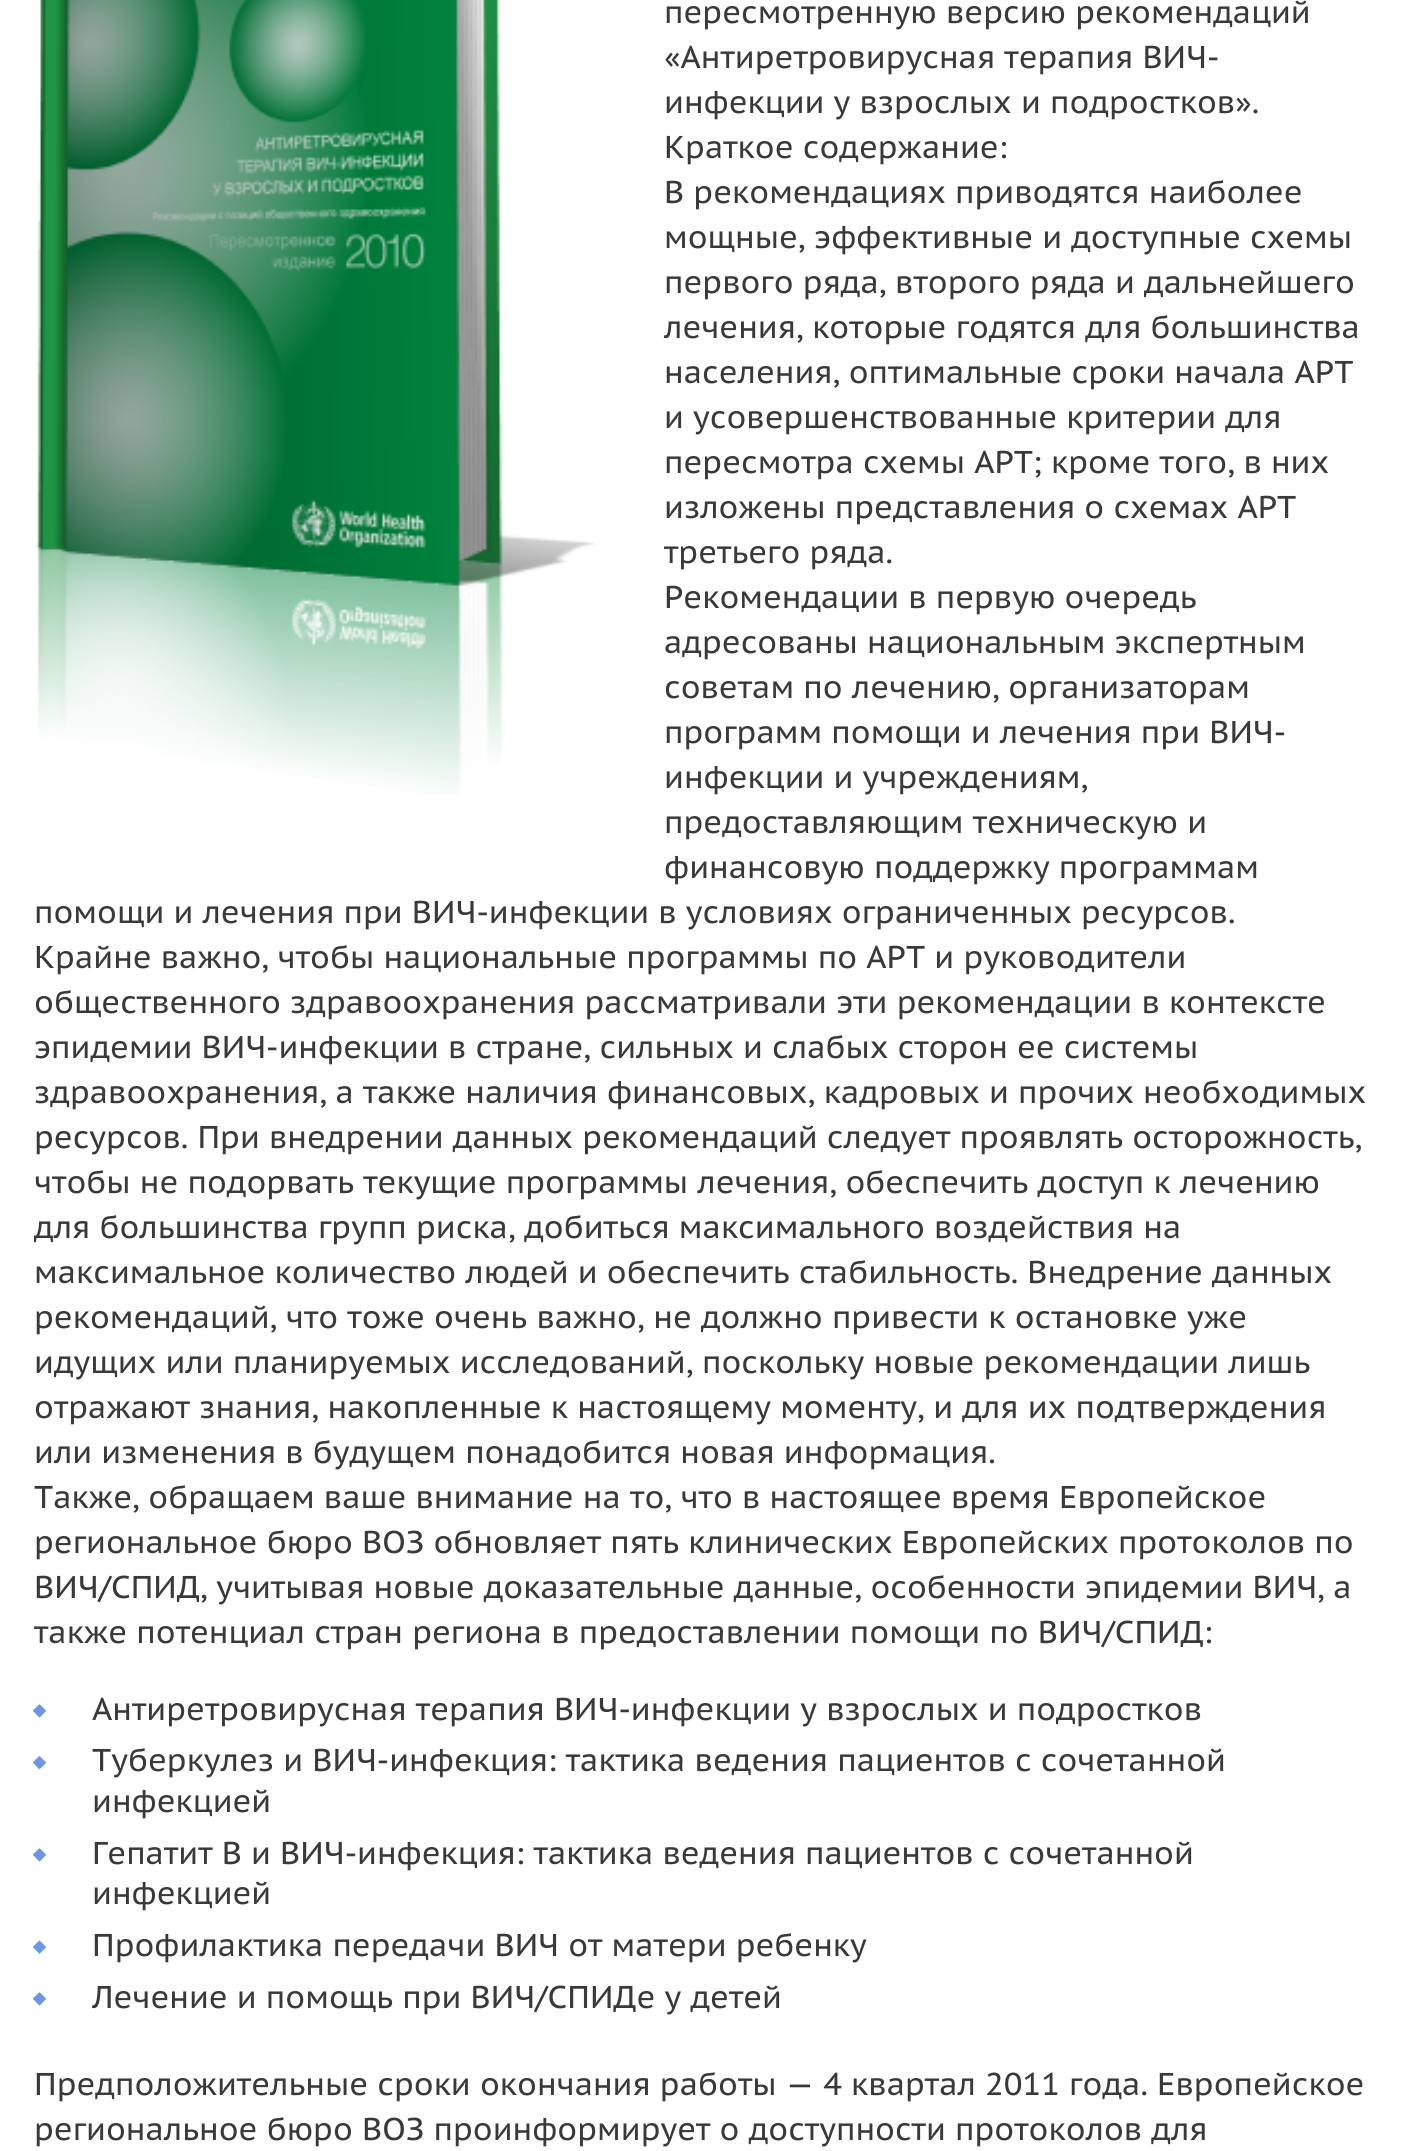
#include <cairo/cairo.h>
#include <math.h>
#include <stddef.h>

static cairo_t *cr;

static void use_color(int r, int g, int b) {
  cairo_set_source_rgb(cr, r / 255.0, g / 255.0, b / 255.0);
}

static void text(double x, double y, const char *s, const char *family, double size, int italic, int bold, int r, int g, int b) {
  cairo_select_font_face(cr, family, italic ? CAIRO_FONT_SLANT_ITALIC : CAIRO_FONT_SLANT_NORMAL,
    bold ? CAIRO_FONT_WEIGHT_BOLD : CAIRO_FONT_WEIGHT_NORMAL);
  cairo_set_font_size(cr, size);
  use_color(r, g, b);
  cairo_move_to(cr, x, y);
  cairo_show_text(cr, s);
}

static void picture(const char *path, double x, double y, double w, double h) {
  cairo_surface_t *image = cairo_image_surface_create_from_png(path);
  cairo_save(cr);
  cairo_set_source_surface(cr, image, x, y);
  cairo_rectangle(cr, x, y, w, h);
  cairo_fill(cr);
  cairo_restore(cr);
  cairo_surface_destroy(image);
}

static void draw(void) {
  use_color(255, 255, 255);
  cairo_paint(cr);
  picture("img_01.png", 35, 0, 560, 794);
  picture("img_02.png", 32, 1704, 15, 14);
  picture("img_03.png", 32, 1756, 15, 14);
  picture("img_02.png", 32, 1848, 15, 14);
  picture("img_04.png", 32, 1940, 15, 14);
  picture("img_02.png", 32, 1992, 15, 14);
  text(664, 23, "пересмотренную версию рекомендаций", "PT Sans Caption", 31.5, 0, 0, 57, 57, 57);
  text(664, 68, "«Антиретровирусная терапия ВИЧ-", "PT Sans Caption", 31.5, 0, 0, 57, 57, 57);
  text(664, 113, "инфекции у взрослых и подростков».", "PT Sans Caption", 31.5, 0, 0, 57, 57, 57);
  text(664, 158, "Краткое содержание:", "PT Sans Caption", 31.5, 0, 0, 57, 57, 57);
  text(664, 203, "В рекомендациях приводятся наиболее", "PT Sans Caption", 31.5, 0, 0, 57, 57, 57);
  text(664, 248, "мощные, эффективные и доступные схемы", "PT Sans Caption", 31.5, 0, 0, 57, 57, 57);
  text(664, 293, "первого ряда, второго ряда и дальнейшего", "PT Sans Caption", 31.5, 0, 0, 57, 57, 57);
  text(664, 338, "лечения, которые годятся для большинства", "PT Sans Caption", 31.5, 0, 0, 57, 57, 57);
  text(664, 383, "населения, оптимальные сроки начала АРТ", "PT Sans Caption", 31.5, 0, 0, 57, 57, 57);
  text(664, 428, "и усовершенствованные критерии для", "PT Sans Caption", 31.5, 0, 0, 57, 57, 57);
  text(664, 473, "пересмотра схемы АРТ; кроме того, в них", "PT Sans Caption", 31.5, 0, 0, 57, 57, 57);
  text(664, 518, "изложены представления о схемах АРТ", "PT Sans Caption", 31.5, 0, 0, 57, 57, 57);
  text(664, 563, "третьего ряда.", "PT Sans Caption", 31.5, 0, 0, 57, 57, 57);
  text(664, 608, "Рекомендации в первую очередь", "PT Sans Caption", 31.5, 0, 0, 57, 57, 57);
  text(664, 653, "адресованы национальным экспертным", "PT Sans Caption", 31.5, 0, 0, 57, 57, 57);
  text(664, 698, "советам по лечению, организаторам", "PT Sans Caption", 31.5, 0, 0, 57, 57, 57);
  text(664, 743, "программ помощи и лечения при ВИЧ-", "PT Sans Caption", 31.5, 0, 0, 57, 57, 57);
  text(664, 788, "инфекции и учреждениям,", "PT Sans Caption", 31.5, 0, 0, 57, 57, 57);
  text(664, 833, "предоставляющим техническую и", "PT Sans Caption", 31.5, 0, 0, 57, 57, 57);
  text(664, 878, "финансовую поддержку программам", "PT Sans Caption", 31.5, 0, 0, 57, 57, 57);
  text(34, 923, "помощи и лечения при ВИЧ-инфекции в условиях ограниченных ресурсов.", "PT Sans Caption", 31.5, 0, 0, 57, 57, 57);
  text(34, 968, "Крайне важно, чтобы национальные программы по АРТ и руководители", "PT Sans Caption", 31.5, 0, 0, 57, 57, 57);
  text(34, 1013, "общественного здравоохранения рассматривали эти рекомендации в контексте", "PT Sans Caption", 31.5, 0, 0, 57, 57, 57);
  text(34, 1058, "эпидемии ВИЧ-инфекции в стране, сильных и слабых сторон ее системы", "PT Sans Caption", 31.5, 0, 0, 57, 57, 57);
  text(34, 1103, "здравоохранения, а также наличия финансовых, кадровых и прочих необходимых", "PT Sans Caption", 31.5, 0, 0, 57, 57, 57);
  text(34, 1148, "ресурсов. При внедрении данных рекомендаций следует проявлять осторожность,", "PT Sans Caption", 31.5, 0, 0, 57, 57, 57);
  text(34, 1193, "чтобы не подорвать текущие программы лечения, обеспечить доступ к лечению", "PT Sans Caption", 31.5, 0, 0, 57, 57, 57);
  text(34, 1238, "для большинства групп риска, добиться максимального воздействия на", "PT Sans Caption", 31.5, 0, 0, 57, 57, 57);
  text(34, 1283, "максимальное количество людей и обеспечить стабильность. Внедрение данных", "PT Sans Caption", 31.5, 0, 0, 57, 57, 57);
  text(34, 1328, "рекомендаций, что тоже очень важно, не должно привести к остановке уже", "PT Sans Caption", 31.5, 0, 0, 57, 57, 57);
  text(34, 1373, "идущих или планируемых исследований, поскольку новые рекомендации лишь", "PT Sans Caption", 31.5, 0, 0, 57, 57, 57);
  text(34, 1418, "отражают знания, накопленные к настоящему моменту, и для их подтверждения", "PT Sans Caption", 31.5, 0, 0, 57, 57, 57);
  text(34, 1463, "или изменения в будущем понадобится новая информация.", "PT Sans Caption", 31.5, 0, 0, 57, 57, 57);
  text(34, 1508, "Также, обращаем ваше внимание на то, что в настоящее время Европейское", "PT Sans Caption", 31.5, 0, 0, 57, 57, 57);
  text(34, 1553, "региональное бюро ВОЗ обновляет пять клинических Европейских протоколов по", "PT Sans Caption", 31.5, 0, 0, 57, 57, 57);
  text(34, 1598, "ВИЧ/СПИД, учитывая новые доказательные данные, особенности эпидемии ВИЧ, а", "PT Sans Caption", 31.5, 0, 0, 57, 57, 57);
  text(34, 1643, "также потенциал стран региона в предоставлении помощи по ВИЧ/СПИД:", "PT Sans Caption", 31.5, 0, 0, 57, 57, 57);
  text(92, 1720, "Антиретровирусная терапия ВИЧ-инфекции у взрослых и подростков", "PT Sans Caption", 31.5, 0, 0, 57, 57, 57);
  text(92, 1771, "Туберкулез и ВИЧ-инфекция: тактика ведения пациентов с сочетанной", "PT Sans Caption", 31.5, 0, 0, 57, 57, 57);
  text(92, 1812, "инфекцией", "PT Sans Caption", 31.5, 0, 0, 57, 57, 57);
  text(92, 1864, "Гепатит В и ВИЧ-инфекция: тактика ведения пациентов с сочетанной", "PT Sans Caption", 31.5, 0, 0, 57, 57, 57);
  text(92, 1904, "инфекцией", "PT Sans Caption", 31.5, 0, 0, 57, 57, 57);
  text(92, 1956, "Профилактика передачи ВИЧ от матери ребенку", "PT Sans Caption", 31.5, 0, 0, 57, 57, 57);
  text(92, 2008, "Лечение и помощь при ВИЧ/СПИДе у детей", "PT Sans Caption", 31.5, 0, 0, 57, 57, 57);
  text(34, 2095, "Предположительные сроки окончания работы — 4 квартал 2011 года. Европейское", "PT Sans Caption", 31.5, 0, 0, 57, 57, 57);
  text(34, 2140, "региональное бюро ВОЗ проинформирует о доступности протоколов для", "PT Sans Caption", 31.5, 0, 0, 57, 57, 57);
}

int main(void) {
  cairo_surface_t *surface = cairo_image_surface_create(CAIRO_FORMAT_RGB24, 1402, 2151);
  cr = cairo_create(surface);
  cairo_font_options_t *options = cairo_font_options_create();
  cairo_font_options_set_hint_metrics(options, CAIRO_HINT_METRICS_OFF);
  cairo_font_options_set_hint_style(options, CAIRO_HINT_STYLE_NONE);
  cairo_set_font_options(cr, options);
  cairo_set_miter_limit(cr, 4);
  draw();
  cairo_surface_write_to_png(surface, "out.png");
  cairo_font_options_destroy(options);
  cairo_destroy(cr);
  cairo_surface_destroy(surface);
  return 0;
}
